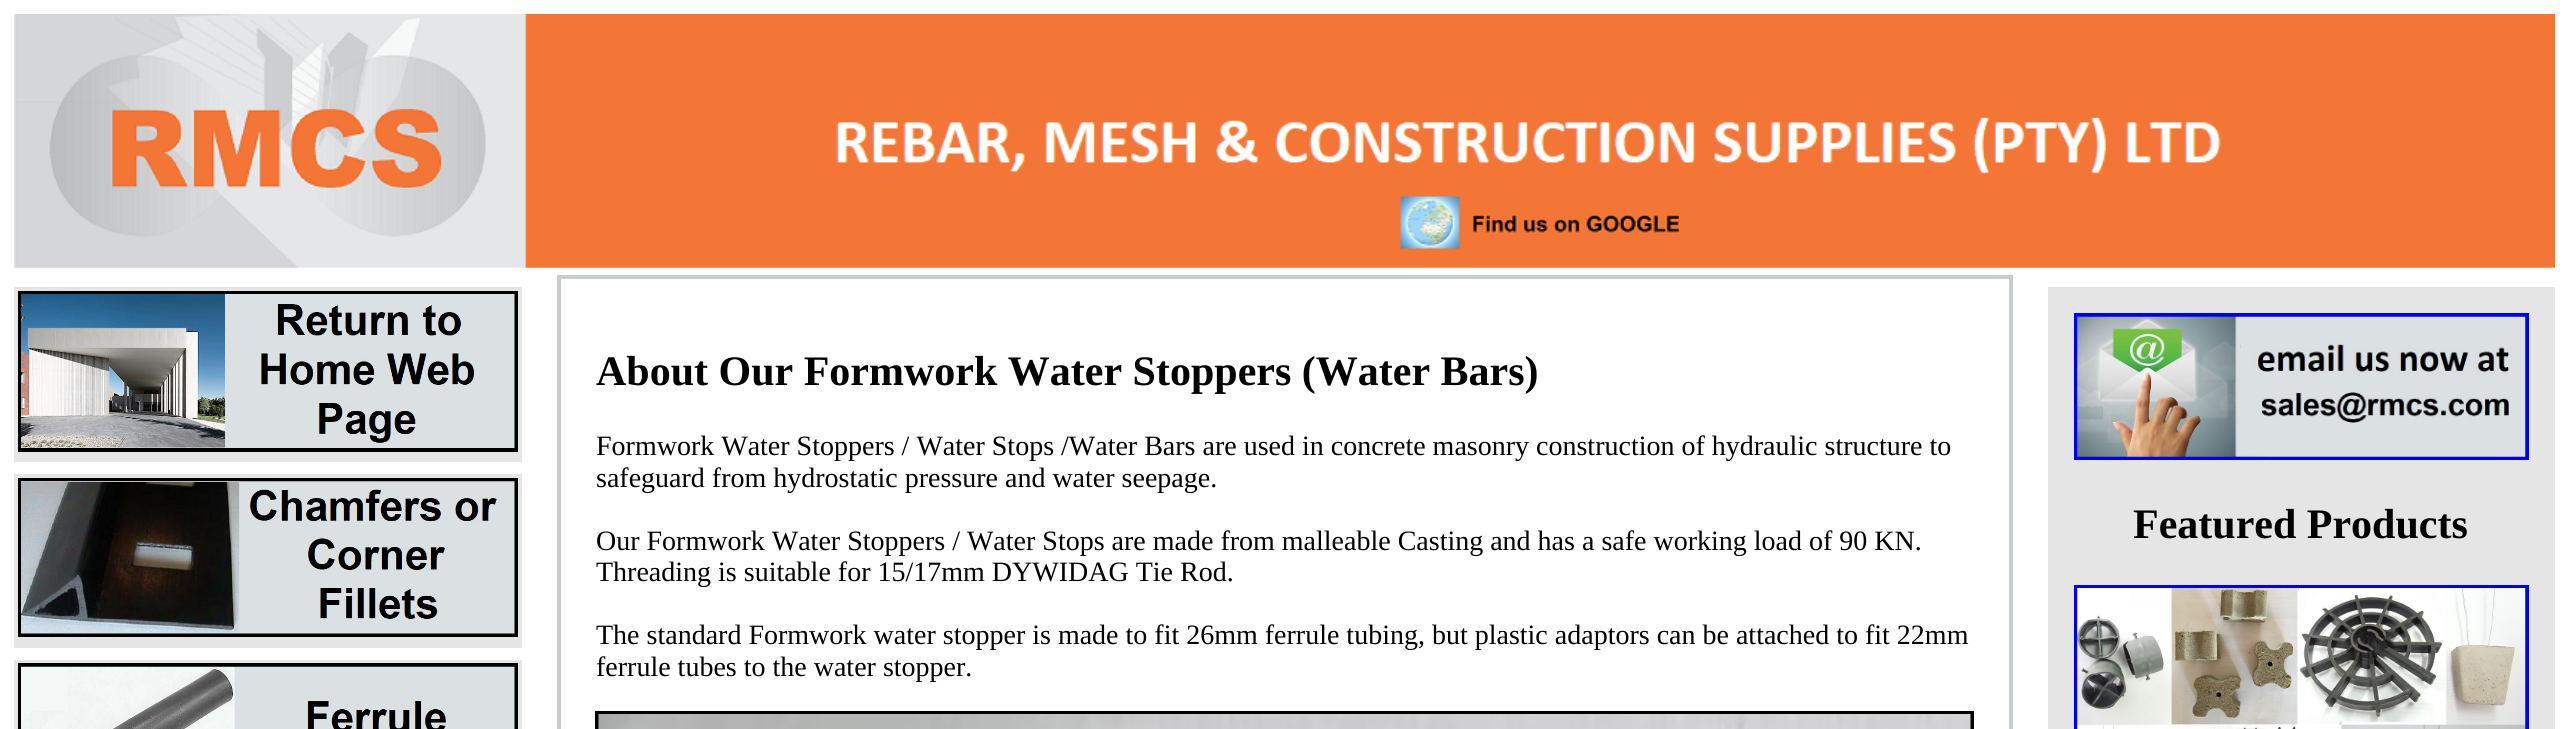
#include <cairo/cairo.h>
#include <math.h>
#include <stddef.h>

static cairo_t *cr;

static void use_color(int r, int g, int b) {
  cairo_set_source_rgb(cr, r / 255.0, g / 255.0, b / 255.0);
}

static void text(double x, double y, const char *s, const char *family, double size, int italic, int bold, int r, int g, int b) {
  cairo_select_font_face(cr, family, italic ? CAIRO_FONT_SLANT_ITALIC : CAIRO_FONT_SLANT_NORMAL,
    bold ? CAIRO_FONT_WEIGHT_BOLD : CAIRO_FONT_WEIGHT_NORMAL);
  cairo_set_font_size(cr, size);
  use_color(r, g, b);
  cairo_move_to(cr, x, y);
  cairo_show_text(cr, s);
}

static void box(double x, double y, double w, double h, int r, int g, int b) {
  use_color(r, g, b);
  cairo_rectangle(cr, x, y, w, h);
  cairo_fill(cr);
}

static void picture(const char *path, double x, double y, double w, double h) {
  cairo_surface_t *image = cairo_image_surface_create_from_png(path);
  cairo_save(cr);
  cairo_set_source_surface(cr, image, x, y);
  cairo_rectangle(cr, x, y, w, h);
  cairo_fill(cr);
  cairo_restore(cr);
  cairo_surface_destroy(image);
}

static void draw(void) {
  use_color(255, 255, 255);
  cairo_paint(cr);
  picture("img_01.png", 14, 14, 2541, 254);
  box(14, 287, 508, 175, 229, 229, 229);
  cairo_rectangle(cr, 20, 293, 496, 157);
  use_color(0, 0, 0);
  cairo_set_line_width(cr, 4);
  cairo_stroke(cr);
  picture("img_02.png", 21, 294, 494, 154);
  box(14, 474, 508, 174, 229, 229, 229);
  cairo_rectangle(cr, 20, 480, 496, 155);
  use_color(0, 0, 0);
  cairo_stroke(cr);
  picture("img_03.png", 21, 481, 494, 153);
  box(14, 660, 508, 69, 229, 229, 229);
  cairo_rectangle(cr, 20, 665, 496, 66);
  use_color(0, 0, 0);
  cairo_stroke(cr);
  picture("img_04.png", 21, 666, 494, 63);
  cairo_rectangle(cr, 559, 277, 1452, 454);
  use_color(200, 205, 210);
  cairo_stroke(cr);
  cairo_rectangle(cr, 597, 713, 1375, 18);
  use_color(0, 0, 0);
  cairo_stroke(cr);
  picture("img_05.png", 598, 714, 1373, 15);
  box(2048, 287, 507, 442, 229, 229, 229);
  cairo_rectangle(cr, 2076, 315, 451, 143);
  use_color(0, 0, 238);
  cairo_stroke(cr);
  picture("img_06.png", 2077, 316, 449, 141);
  cairo_rectangle(cr, 2076, 587, 451, 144);
  cairo_stroke(cr);
  picture("img_07.png", 2077, 588, 449, 141);
  text(596, 385, "About Our Formwork Water Stoppers (Water Bars)", "Liberation Serif", 42, 0, 1, 0, 0, 0);
  text(596, 455, "Formwork Water Stoppers / Water Stops /Water Bars are used in concrete masonry construction of hydraulic structure to", "Liberation Serif", 28, 0, 0, 0, 0, 0);
  text(596, 487, "safeguard from hydrostatic pressure and water seepage.", "Liberation Serif", 28, 0, 0, 0, 0, 0);
  text(596, 550, "Our Formwork Water Stoppers / Water Stops are made from malleable Casting and has a safe working load of 90 KN.", "Liberation Serif", 28, 0, 0, 0, 0, 0);
  text(596, 581, "Threading is suitable for 15/17mm DYWIDAG Tie Rod.", "Liberation Serif", 28, 0, 0, 0, 0, 0);
  text(596, 644, "The standard Formwork water stopper is made to fit 26mm ferrule tubing, but plastic adaptors can be attached to fit 22mm", "Liberation Serif", 28, 0, 0, 0, 0, 0);
  text(596, 676, "ferrule tubes to the water stopper.", "Liberation Serif", 28, 0, 0, 0, 0, 0);
  text(2133, 538, "Featured Products", "Liberation Serif", 42, 0, 1, 0, 0, 0);
}

int main(void) {
  cairo_surface_t *surface = cairo_image_surface_create(CAIRO_FORMAT_RGB24, 2569, 729);
  cr = cairo_create(surface);
  cairo_font_options_t *options = cairo_font_options_create();
  cairo_font_options_set_hint_metrics(options, CAIRO_HINT_METRICS_OFF);
  cairo_font_options_set_hint_style(options, CAIRO_HINT_STYLE_NONE);
  cairo_set_font_options(cr, options);
  cairo_set_miter_limit(cr, 4);
  draw();
  cairo_surface_write_to_png(surface, "out.png");
  cairo_font_options_destroy(options);
  cairo_destroy(cr);
  cairo_surface_destroy(surface);
  return 0;
}
